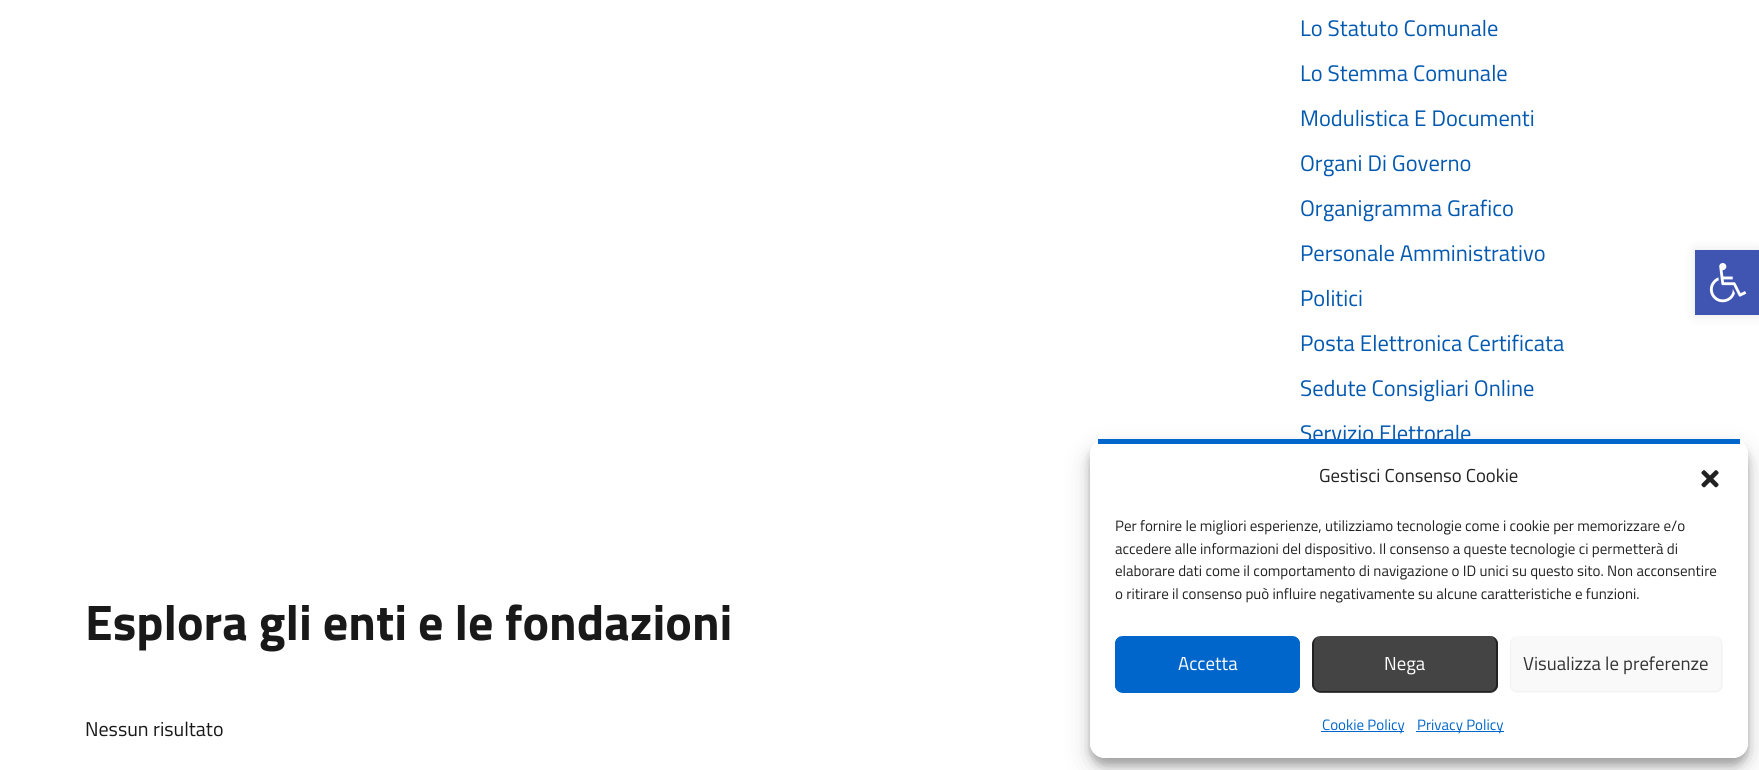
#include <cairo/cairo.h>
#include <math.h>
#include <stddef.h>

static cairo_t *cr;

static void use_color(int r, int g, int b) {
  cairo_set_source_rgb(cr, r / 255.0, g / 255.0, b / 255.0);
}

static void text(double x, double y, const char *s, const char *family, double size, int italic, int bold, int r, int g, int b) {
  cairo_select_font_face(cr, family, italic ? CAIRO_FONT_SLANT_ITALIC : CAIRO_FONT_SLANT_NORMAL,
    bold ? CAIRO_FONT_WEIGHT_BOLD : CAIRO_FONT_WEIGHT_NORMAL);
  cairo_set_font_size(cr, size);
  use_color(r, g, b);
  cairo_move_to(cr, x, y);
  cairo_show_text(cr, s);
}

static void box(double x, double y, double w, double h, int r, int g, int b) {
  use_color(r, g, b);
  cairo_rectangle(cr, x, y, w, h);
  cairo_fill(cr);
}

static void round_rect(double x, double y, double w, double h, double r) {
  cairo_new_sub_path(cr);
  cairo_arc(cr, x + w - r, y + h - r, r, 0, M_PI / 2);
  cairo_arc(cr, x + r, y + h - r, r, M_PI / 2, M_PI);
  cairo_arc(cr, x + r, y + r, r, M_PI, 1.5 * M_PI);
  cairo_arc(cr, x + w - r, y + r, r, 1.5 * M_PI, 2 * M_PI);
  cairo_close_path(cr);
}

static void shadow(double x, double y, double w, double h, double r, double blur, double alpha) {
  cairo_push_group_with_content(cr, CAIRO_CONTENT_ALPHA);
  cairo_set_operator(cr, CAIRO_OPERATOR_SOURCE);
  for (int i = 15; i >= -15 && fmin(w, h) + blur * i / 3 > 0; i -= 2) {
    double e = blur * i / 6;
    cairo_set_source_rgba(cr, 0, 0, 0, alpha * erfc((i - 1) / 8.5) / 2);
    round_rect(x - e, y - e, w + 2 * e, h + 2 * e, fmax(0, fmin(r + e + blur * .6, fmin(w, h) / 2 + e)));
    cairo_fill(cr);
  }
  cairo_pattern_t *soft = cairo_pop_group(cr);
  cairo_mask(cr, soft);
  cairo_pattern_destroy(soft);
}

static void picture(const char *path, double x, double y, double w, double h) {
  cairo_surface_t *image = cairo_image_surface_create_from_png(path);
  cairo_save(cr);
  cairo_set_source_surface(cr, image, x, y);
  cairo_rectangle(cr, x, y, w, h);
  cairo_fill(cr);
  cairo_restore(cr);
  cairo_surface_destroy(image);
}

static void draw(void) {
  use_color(255, 255, 255);
  cairo_paint(cr);
  use_color(0, 0, 0);
  shadow(1695, 250, 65, 65, 0, 6, 0.1);
  box(1695, 250, 64, 65, 64, 84, 178);
  picture("img_01.png", 1709, 263, 38, 40);
  cairo_save(cr);
  cairo_set_fill_rule(cr, CAIRO_FILL_RULE_EVEN_ODD);
  cairo_new_path(cr);
  cairo_move_to(cr, 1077, 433);
  cairo_line_to(cr, 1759, 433);
  cairo_line_to(cr, 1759, 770);
  cairo_line_to(cr, 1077, 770);
  cairo_close_path(cr);
  cairo_move_to(cr, 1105, 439);
  cairo_line_to(cr, 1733, 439);
  cairo_curve_to(cr, 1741.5, 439, 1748, 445.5, 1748, 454);
  cairo_line_to(cr, 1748, 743);
  cairo_curve_to(cr, 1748, 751.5, 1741.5, 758, 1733, 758);
  cairo_line_to(cr, 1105, 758);
  cairo_curve_to(cr, 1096.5, 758, 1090, 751.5, 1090, 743);
  cairo_line_to(cr, 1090, 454);
  cairo_curve_to(cr, 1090, 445.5, 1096.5, 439, 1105, 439);
  cairo_close_path(cr);
  cairo_clip(cr);
  use_color(0, 0, 0);
  shadow(1090, 446, 658, 319, 15, 4, 0.23);
  cairo_restore(cr);
  cairo_save(cr);
  cairo_set_fill_rule(cr, CAIRO_FILL_RULE_EVEN_ODD);
  cairo_new_path(cr);
  cairo_move_to(cr, 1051, 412);
  cairo_line_to(cr, 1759, 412);
  cairo_line_to(cr, 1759, 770);
  cairo_line_to(cr, 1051, 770);
  cairo_close_path(cr);
  cairo_move_to(cr, 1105, 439);
  cairo_line_to(cr, 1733, 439);
  cairo_curve_to(cr, 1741.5, 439, 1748, 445.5, 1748, 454);
  cairo_line_to(cr, 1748, 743);
  cairo_curve_to(cr, 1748, 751.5, 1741.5, 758, 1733, 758);
  cairo_line_to(cr, 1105, 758);
  cairo_curve_to(cr, 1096.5, 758, 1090, 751.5, 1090, 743);
  cairo_line_to(cr, 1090, 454);
  cairo_curve_to(cr, 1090, 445.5, 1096.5, 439, 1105, 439);
  cairo_close_path(cr);
  cairo_clip(cr);
  use_color(0, 0, 0);
  shadow(1090, 451, 658, 319, 15, 12.5, 0.19);
  cairo_restore(cr);
  use_color(255, 255, 255);
  cairo_new_path(cr);
  cairo_move_to(cr, 1105, 444);
  cairo_line_to(cr, 1732, 444);
  cairo_curve_to(cr, 1741, 444, 1748, 448, 1748, 454);
  cairo_line_to(cr, 1748, 742);
  cairo_curve_to(cr, 1748, 751, 1741, 758, 1732, 758);
  cairo_line_to(cr, 1105, 758);
  cairo_curve_to(cr, 1097, 758, 1090, 751, 1090, 742);
  cairo_line_to(cr, 1090, 454);
  cairo_curve_to(cr, 1090, 448, 1097, 444, 1105, 444);
  cairo_close_path(cr);
  cairo_fill(cr);
  picture("img_02.png", 1701, 470, 18, 18);
  use_color(0, 102, 204);
  round_rect(1115, 636, 185, 57, 8);
  cairo_fill(cr);
  cairo_set_fill_rule(cr, CAIRO_FILL_RULE_EVEN_ODD);
  cairo_new_path(cr);
  cairo_move_to(cr, 1122, 636);
  cairo_line_to(cr, 1292, 636);
  cairo_curve_to(cr, 1297, 636, 1300, 640, 1300, 644);
  cairo_line_to(cr, 1300, 685);
  cairo_curve_to(cr, 1300, 689, 1297, 692, 1292, 692);
  cairo_line_to(cr, 1122, 692);
  cairo_curve_to(cr, 1118, 692, 1115, 689, 1115, 685);
  cairo_line_to(cr, 1115, 644);
  cairo_curve_to(cr, 1115, 640, 1118, 636, 1122, 636);
  cairo_close_path(cr);
  cairo_move_to(cr, 1122, 636);
  cairo_line_to(cr, 1292, 636);
  cairo_curve_to(cr, 1296, 636, 1299, 640, 1299, 644);
  cairo_line_to(cr, 1299, 685);
  cairo_curve_to(cr, 1299, 688, 1296, 691, 1292, 691);
  cairo_line_to(cr, 1122, 691);
  cairo_curve_to(cr, 1119, 691, 1116, 688, 1116, 685);
  cairo_line_to(cr, 1116, 644);
  cairo_curve_to(cr, 1116, 640, 1119, 636, 1122, 636);
  cairo_close_path(cr);
  cairo_fill(cr);
  use_color(68, 68, 68);
  round_rect(1313, 636, 185, 57, 8);
  cairo_fill(cr);
  use_color(34, 34, 34);
  cairo_new_path(cr);
  cairo_move_to(cr, 1320, 636);
  cairo_line_to(cr, 1490, 636);
  cairo_curve_to(cr, 1494, 636, 1498, 640, 1498, 644);
  cairo_line_to(cr, 1498, 685);
  cairo_curve_to(cr, 1498, 689, 1494, 692, 1490, 692);
  cairo_line_to(cr, 1320, 692);
  cairo_curve_to(cr, 1316, 692, 1312, 689, 1312, 685);
  cairo_line_to(cr, 1312, 644);
  cairo_curve_to(cr, 1312, 640, 1316, 636, 1320, 636);
  cairo_close_path(cr);
  cairo_move_to(cr, 1320, 636);
  cairo_line_to(cr, 1490, 636);
  cairo_curve_to(cr, 1493, 636, 1496, 640, 1496, 644);
  cairo_line_to(cr, 1496, 685);
  cairo_curve_to(cr, 1496, 688, 1493, 691, 1490, 691);
  cairo_line_to(cr, 1320, 691);
  cairo_curve_to(cr, 1317, 691, 1314, 688, 1314, 685);
  cairo_line_to(cr, 1314, 644);
  cairo_curve_to(cr, 1314, 640, 1317, 636, 1320, 636);
  cairo_close_path(cr);
  cairo_fill(cr);
  use_color(249, 249, 249);
  round_rect(1510, 636, 213, 57, 8);
  cairo_fill(cr);
  use_color(242, 242, 242);
  cairo_new_path(cr);
  cairo_move_to(cr, 1518, 636);
  cairo_line_to(cr, 1715, 636);
  cairo_curve_to(cr, 1719, 636, 1722, 640, 1722, 644);
  cairo_line_to(cr, 1722, 685);
  cairo_curve_to(cr, 1722, 689, 1719, 692, 1715, 692);
  cairo_line_to(cr, 1518, 692);
  cairo_curve_to(cr, 1513, 692, 1510, 689, 1510, 685);
  cairo_line_to(cr, 1510, 644);
  cairo_curve_to(cr, 1510, 640, 1513, 636, 1518, 636);
  cairo_close_path(cr);
  cairo_move_to(cr, 1518, 636);
  cairo_line_to(cr, 1715, 636);
  cairo_curve_to(cr, 1718, 636, 1721, 640, 1721, 644);
  cairo_line_to(cr, 1721, 685);
  cairo_curve_to(cr, 1721, 688, 1718, 691, 1715, 691);
  cairo_line_to(cr, 1518, 691);
  cairo_curve_to(cr, 1514, 691, 1511, 688, 1511, 685);
  cairo_line_to(cr, 1511, 644);
  cairo_curve_to(cr, 1511, 640, 1514, 636, 1518, 636);
  cairo_close_path(cr);
  cairo_fill(cr);
  box(1321, 731, 83, 1, 0, 102, 204);
  box(1416, 731, 88, 1, 0, 102, 204);
  text(1300, 36, "Lo Statuto Comunale", "Titillium Web", 22.5, 0, 0, 3, 89, 176);
  text(1300, 81, "Lo Stemma Comunale", "Titillium Web", 22.5, 0, 0, 3, 89, 176);
  text(1300, 126, "Modulistica E Documenti", "Titillium Web", 22.5, 0, 0, 3, 89, 176);
  text(1300, 171, "Organi Di Governo", "Titillium Web", 22.5, 0, 0, 3, 89, 176);
  text(1300, 216, "Organigramma Grafico", "Titillium Web", 22.5, 0, 0, 3, 89, 176);
  text(1300, 261, "Personale Amministrativo", "Titillium Web", 22.5, 0, 0, 3, 89, 176);
  text(1300, 306, "Politici", "Titillium Web", 22.5, 0, 0, 3, 89, 176);
  text(1300, 351, "Posta Elettronica Certificata", "Titillium Web", 22.5, 0, 0, 3, 89, 176);
  text(1300, 396, "Sedute Consigliari Online", "Titillium Web", 22.5, 0, 0, 3, 89, 176);
  text(1300, 441, "Servizio Elettorale", "Titillium Web", 22.5, 0, 0, 3, 89, 176);
  text(85, 640, "Esplora gli enti e le fondazioni", "Titillium Web", 50, 0, 1, 25, 25, 25);
  text(85, 736, "Nessun risultato", "Titillium Web", 20, 0, 0, 25, 25, 25);
  box(1098, 439, 642, 5, 0, 102, 204);
  text(1319, 482, "Gestisci Consenso Cookie", "Titillium Web", 18.75, 0, 0, 34, 34, 34);
  text(1115, 531, "Per fornire le migliori esperienze, utilizziamo tecnologie come i cookie per memorizzare e/o", "Titillium Web", 15, 0, 0, 34, 34, 34);
  text(1115, 554, "accedere alle informazioni del dispositivo. Il consenso a queste tecnologie ci permetterà di", "Titillium Web", 15, 0, 0, 34, 34, 34);
  text(1115, 576, "elaborare dati come il comportamento di navigazione o ID unici su questo sito. Non acconsentire", "Titillium Web", 15, 0, 0, 34, 34, 34);
  text(1115, 599, "o ritirare il consenso può influire negativamente su alcune caratteristiche e funzioni.", "Titillium Web", 15, 0, 0, 34, 34, 34);
  text(1178, 670, "Accetta", "Titillium Web", 18.75, 0, 0, 255, 255, 255);
  text(1384, 670, "Nega", "Titillium Web", 18.75, 0, 0, 255, 255, 255);
  text(1523, 670, "Visualizza le preferenze", "Titillium Web", 18.75, 0, 0, 51, 51, 51);
  text(1322, 730, "Cookie Policy", "Titillium Web", 15, 0, 0, 0, 102, 204);
  text(1417, 730, "Privacy Policy", "Titillium Web", 15, 0, 0, 0, 102, 204);
}

int main(void) {
  cairo_surface_t *surface = cairo_image_surface_create(CAIRO_FORMAT_RGB24, 1759, 770);
  cr = cairo_create(surface);
  cairo_font_options_t *options = cairo_font_options_create();
  cairo_font_options_set_hint_metrics(options, CAIRO_HINT_METRICS_OFF);
  cairo_font_options_set_hint_style(options, CAIRO_HINT_STYLE_NONE);
  cairo_set_font_options(cr, options);
  cairo_set_miter_limit(cr, 4);
  draw();
  cairo_surface_write_to_png(surface, "out.png");
  cairo_font_options_destroy(options);
  cairo_destroy(cr);
  cairo_surface_destroy(surface);
  return 0;
}
